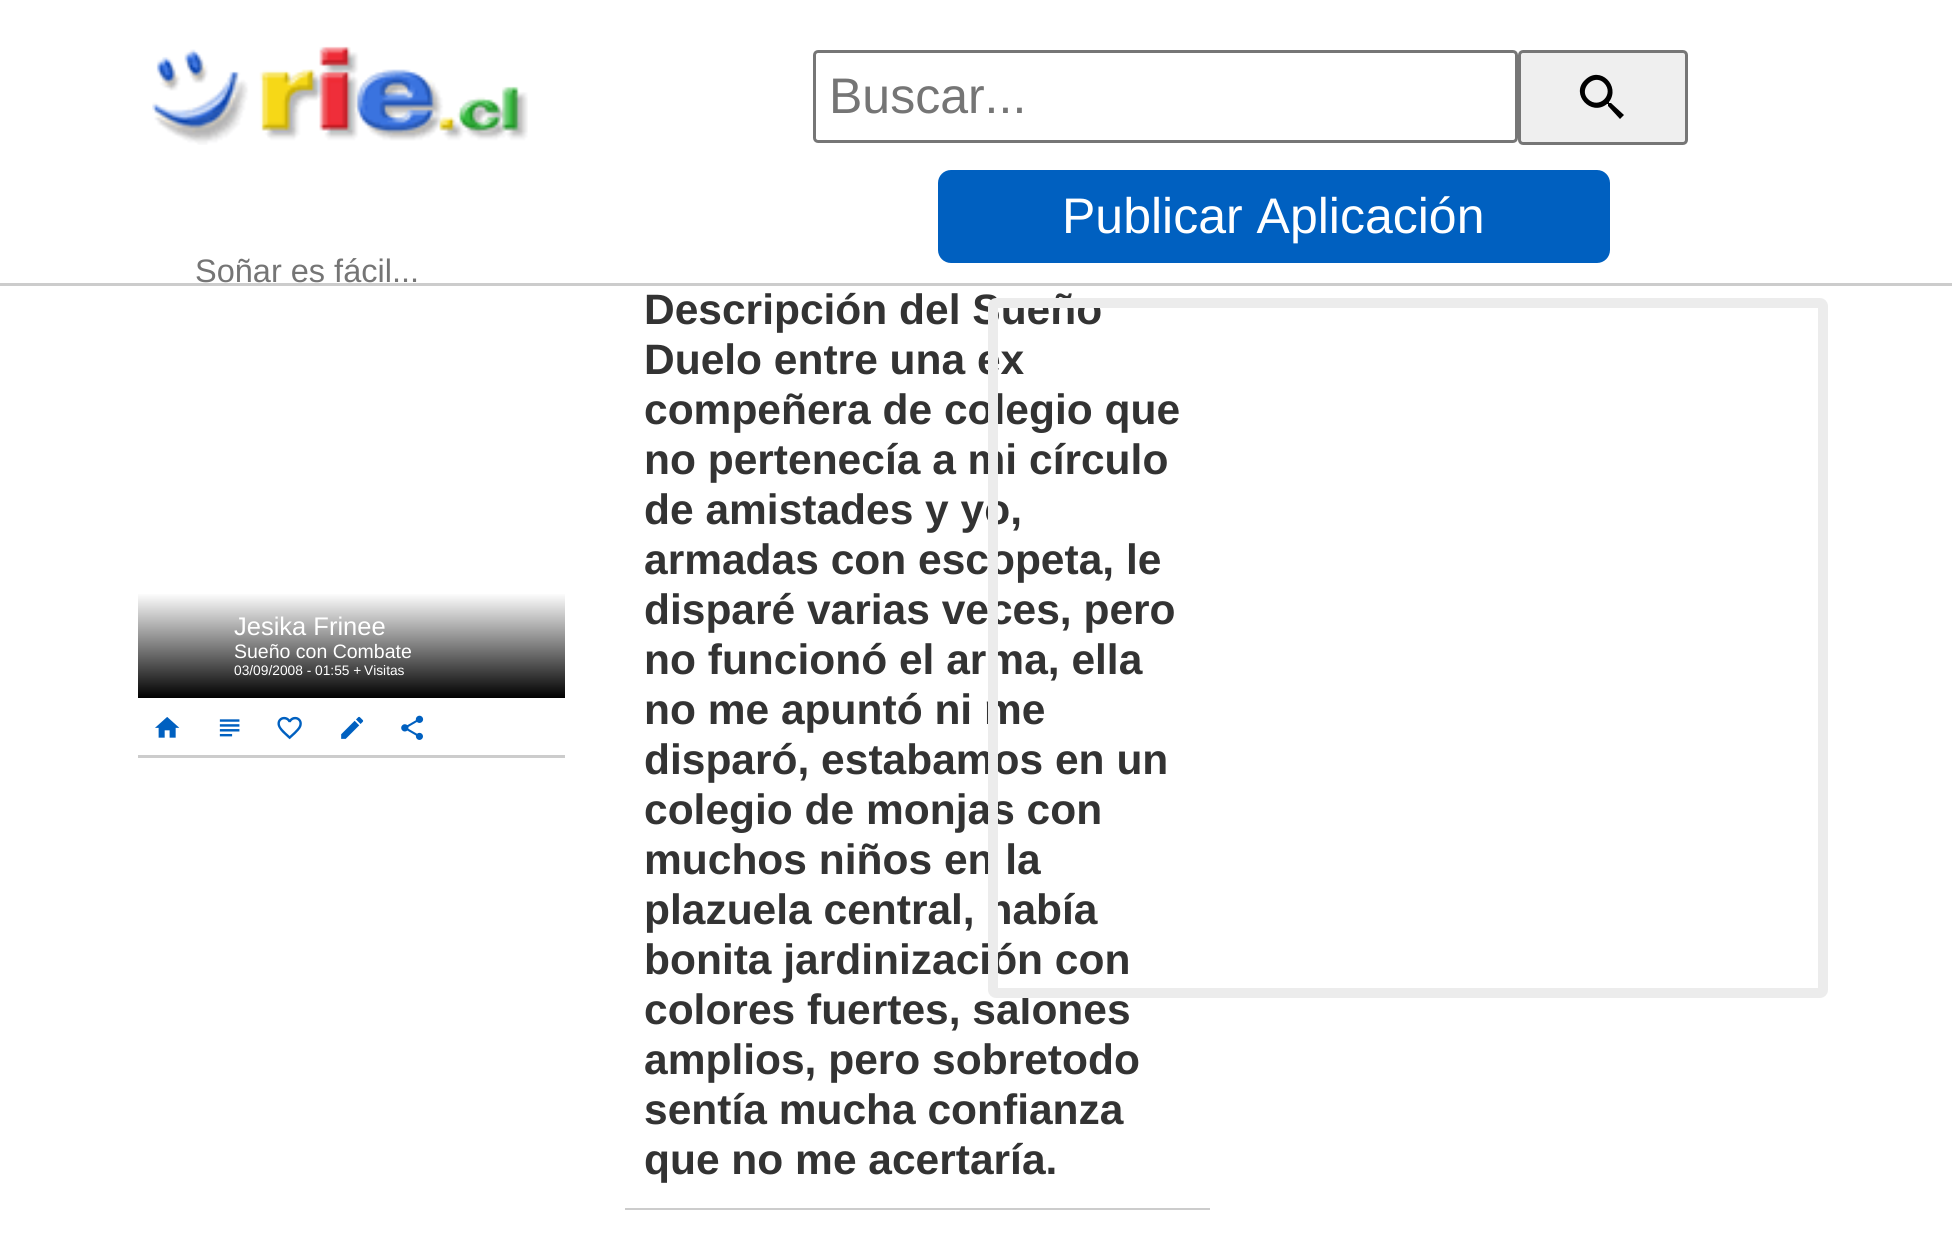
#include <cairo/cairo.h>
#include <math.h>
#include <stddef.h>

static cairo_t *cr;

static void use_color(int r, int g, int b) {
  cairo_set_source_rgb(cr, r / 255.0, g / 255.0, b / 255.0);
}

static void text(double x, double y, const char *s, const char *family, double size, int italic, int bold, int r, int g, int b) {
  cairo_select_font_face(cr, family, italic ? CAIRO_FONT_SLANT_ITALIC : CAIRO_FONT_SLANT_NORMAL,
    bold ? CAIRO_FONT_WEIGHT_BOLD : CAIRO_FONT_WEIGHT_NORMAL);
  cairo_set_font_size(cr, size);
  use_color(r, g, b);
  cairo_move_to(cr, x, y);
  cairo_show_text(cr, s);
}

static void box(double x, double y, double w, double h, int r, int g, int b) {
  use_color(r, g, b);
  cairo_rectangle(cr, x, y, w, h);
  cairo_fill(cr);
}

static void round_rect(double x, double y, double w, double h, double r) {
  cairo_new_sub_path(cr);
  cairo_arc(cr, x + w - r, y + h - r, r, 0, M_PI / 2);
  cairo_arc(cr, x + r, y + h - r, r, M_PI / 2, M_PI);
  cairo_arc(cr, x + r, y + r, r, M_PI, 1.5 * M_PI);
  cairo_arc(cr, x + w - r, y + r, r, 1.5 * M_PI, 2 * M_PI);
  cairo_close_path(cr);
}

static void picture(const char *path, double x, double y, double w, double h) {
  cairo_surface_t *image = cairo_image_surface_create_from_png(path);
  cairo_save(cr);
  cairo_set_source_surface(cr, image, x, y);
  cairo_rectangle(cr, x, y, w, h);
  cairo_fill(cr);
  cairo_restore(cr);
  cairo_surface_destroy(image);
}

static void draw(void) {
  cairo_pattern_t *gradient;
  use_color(255, 255, 255);
  cairo_paint(cr);
  box(0, 283, 1952, 3, 204, 204, 204);
  picture("img_01.png", 152, 46, 376, 99);
  round_rect(814.5, 51.5, 702, 90, 3.5);
  use_color(118, 118, 118);
  cairo_set_line_width(cr, 3);
  cairo_stroke(cr);
  use_color(239, 239, 239);
  round_rect(1519.5, 51.5, 167, 92, 3.5);
  cairo_fill_preserve(cr);
  use_color(118, 118, 118);
  cairo_stroke(cr);
  use_color(0, 0, 0);
  cairo_new_path(cr);
  cairo_move_to(cr, 1588, 99);
  cairo_curve_to(cr, 1599, 110, 1615, 94, 1604, 83);
  cairo_curve_to(cr, 1594, 73, 1578, 89, 1588, 99);
  cairo_close_path(cr);
  cairo_move_to(cr, 1611, 103);
  cairo_line_to(cr, 1624, 115);
  cairo_line_to(cr, 1620, 119);
  cairo_line_to(cr, 1608, 106);
  cairo_line_to(cr, 1608, 104);
  cairo_line_to(cr, 1607, 104);
  cairo_curve_to(cr, 1591, 117, 1570, 94, 1585, 80);
  cairo_curve_to(cr, 1600, 65, 1621, 86, 1609, 102);
  cairo_line_to(cr, 1609, 103);
  cairo_close_path(cr);
  cairo_fill(cr);
  use_color(0, 96, 192);
  round_rect(938, 170, 672, 93, 13);
  cairo_fill(cr);
  gradient = cairo_pattern_create_linear(351, 698, 351, 593);
  cairo_pattern_add_color_stop_rgba(gradient, 0, 0, 0, 0, 1);
  cairo_pattern_add_color_stop_rgba(gradient, 1, 1, 1, 1, 1);
  cairo_set_source(cr, gradient);
  cairo_pattern_destroy(gradient);
  cairo_rectangle(cr, 138, 594, 427, 104);
  cairo_fill(cr);
  box(138, 755, 427, 3, 204, 204, 204);
  picture("img_02.png", 155, 717, 25, 21);
  picture("img_03.png", 219, 719, 21, 18);
  picture("img_04.png", 277, 716, 25, 24);
  picture("img_05.png", 341, 716, 23, 23);
  picture("img_06.png", 401, 715, 23, 25);
  box(625, 1208, 585, 2, 204, 204, 204);
  text(829, 113, "Buscar...", "Liberation Sans", 50, 0, 0, 117, 117, 117);
  text(1062, 233, "Publicar Aplicación", "Liberation Sans", 50, 0, 0, 255, 255, 255);
  text(195, 282, "Soñar es fácil...", "Liberation Sans", 32.5, 0, 0, 117, 117, 117);
  text(234, 635, "Jesika Frinee", "Liberation Sans", 25.5, 0, 0, 255, 255, 255);
  text(234, 658, "Sueño con Combate", "Liberation Sans", 19.5, 0, 0, 255, 255, 255);
  text(234, 675, "03/09/2008 - 01:55 +", "Liberation Sans", 13.75, 0, 0, 255, 255, 255);
  text(364, 675, "Visitas", "Liberation Sans", 13.75, 0, 0, 255, 255, 255);
  text(644, 324, "Descripción del Sueño", "Liberation Sans", 42.5, 0, 1, 51, 51, 51);
  text(644, 374, "Duelo entre una ex", "Liberation Sans", 42.5, 0, 1, 51, 51, 51);
  text(644, 424, "compeñera de colegio que", "Liberation Sans", 42.5, 0, 1, 51, 51, 51);
  text(644, 474, "no pertenecía a mi círculo", "Liberation Sans", 42.5, 0, 1, 51, 51, 51);
  text(644, 524, "de amistades y yo,", "Liberation Sans", 42.5, 0, 1, 51, 51, 51);
  text(644, 574, "armadas con escopeta, le", "Liberation Sans", 42.5, 0, 1, 51, 51, 51);
  text(644, 624, "disparé varias veces, pero", "Liberation Sans", 42.5, 0, 1, 51, 51, 51);
  text(644, 674, "no funcionó el arma, ella", "Liberation Sans", 42.5, 0, 1, 51, 51, 51);
  text(644, 724, "no me apuntó ni me", "Liberation Sans", 42.5, 0, 1, 51, 51, 51);
  text(644, 774, "disparó, estabamos en un", "Liberation Sans", 42.5, 0, 1, 51, 51, 51);
  text(644, 824, "colegio de monjas con", "Liberation Sans", 42.5, 0, 1, 51, 51, 51);
  text(644, 874, "muchos niños en la", "Liberation Sans", 42.5, 0, 1, 51, 51, 51);
  text(644, 924, "plazuela central, había", "Liberation Sans", 42.5, 0, 1, 51, 51, 51);
  text(644, 974, "bonita jardinización con", "Liberation Sans", 42.5, 0, 1, 51, 51, 51);
  text(644, 1024, "colores fuertes, salones", "Liberation Sans", 42.5, 0, 1, 51, 51, 51);
  text(644, 1074, "amplios, pero sobretodo", "Liberation Sans", 42.5, 0, 1, 51, 51, 51);
  text(644, 1124, "sentía mucha confianza", "Liberation Sans", 42.5, 0, 1, 51, 51, 51);
  text(644, 1174, "que no me acertaría.", "Liberation Sans", 42.5, 0, 1, 51, 51, 51);
  round_rect(993, 303, 830, 690, 3);
  use_color(236, 236, 236);
  cairo_set_line_width(cr, 10);
  cairo_stroke(cr);
}

int main(void) {
  cairo_surface_t *surface = cairo_image_surface_create(CAIRO_FORMAT_RGB24, 1952, 1239);
  cr = cairo_create(surface);
  cairo_font_options_t *options = cairo_font_options_create();
  cairo_font_options_set_hint_metrics(options, CAIRO_HINT_METRICS_OFF);
  cairo_font_options_set_hint_style(options, CAIRO_HINT_STYLE_NONE);
  cairo_set_font_options(cr, options);
  cairo_set_miter_limit(cr, 4);
  draw();
  cairo_surface_write_to_png(surface, "out.png");
  cairo_font_options_destroy(options);
  cairo_destroy(cr);
  cairo_surface_destroy(surface);
  return 0;
}
